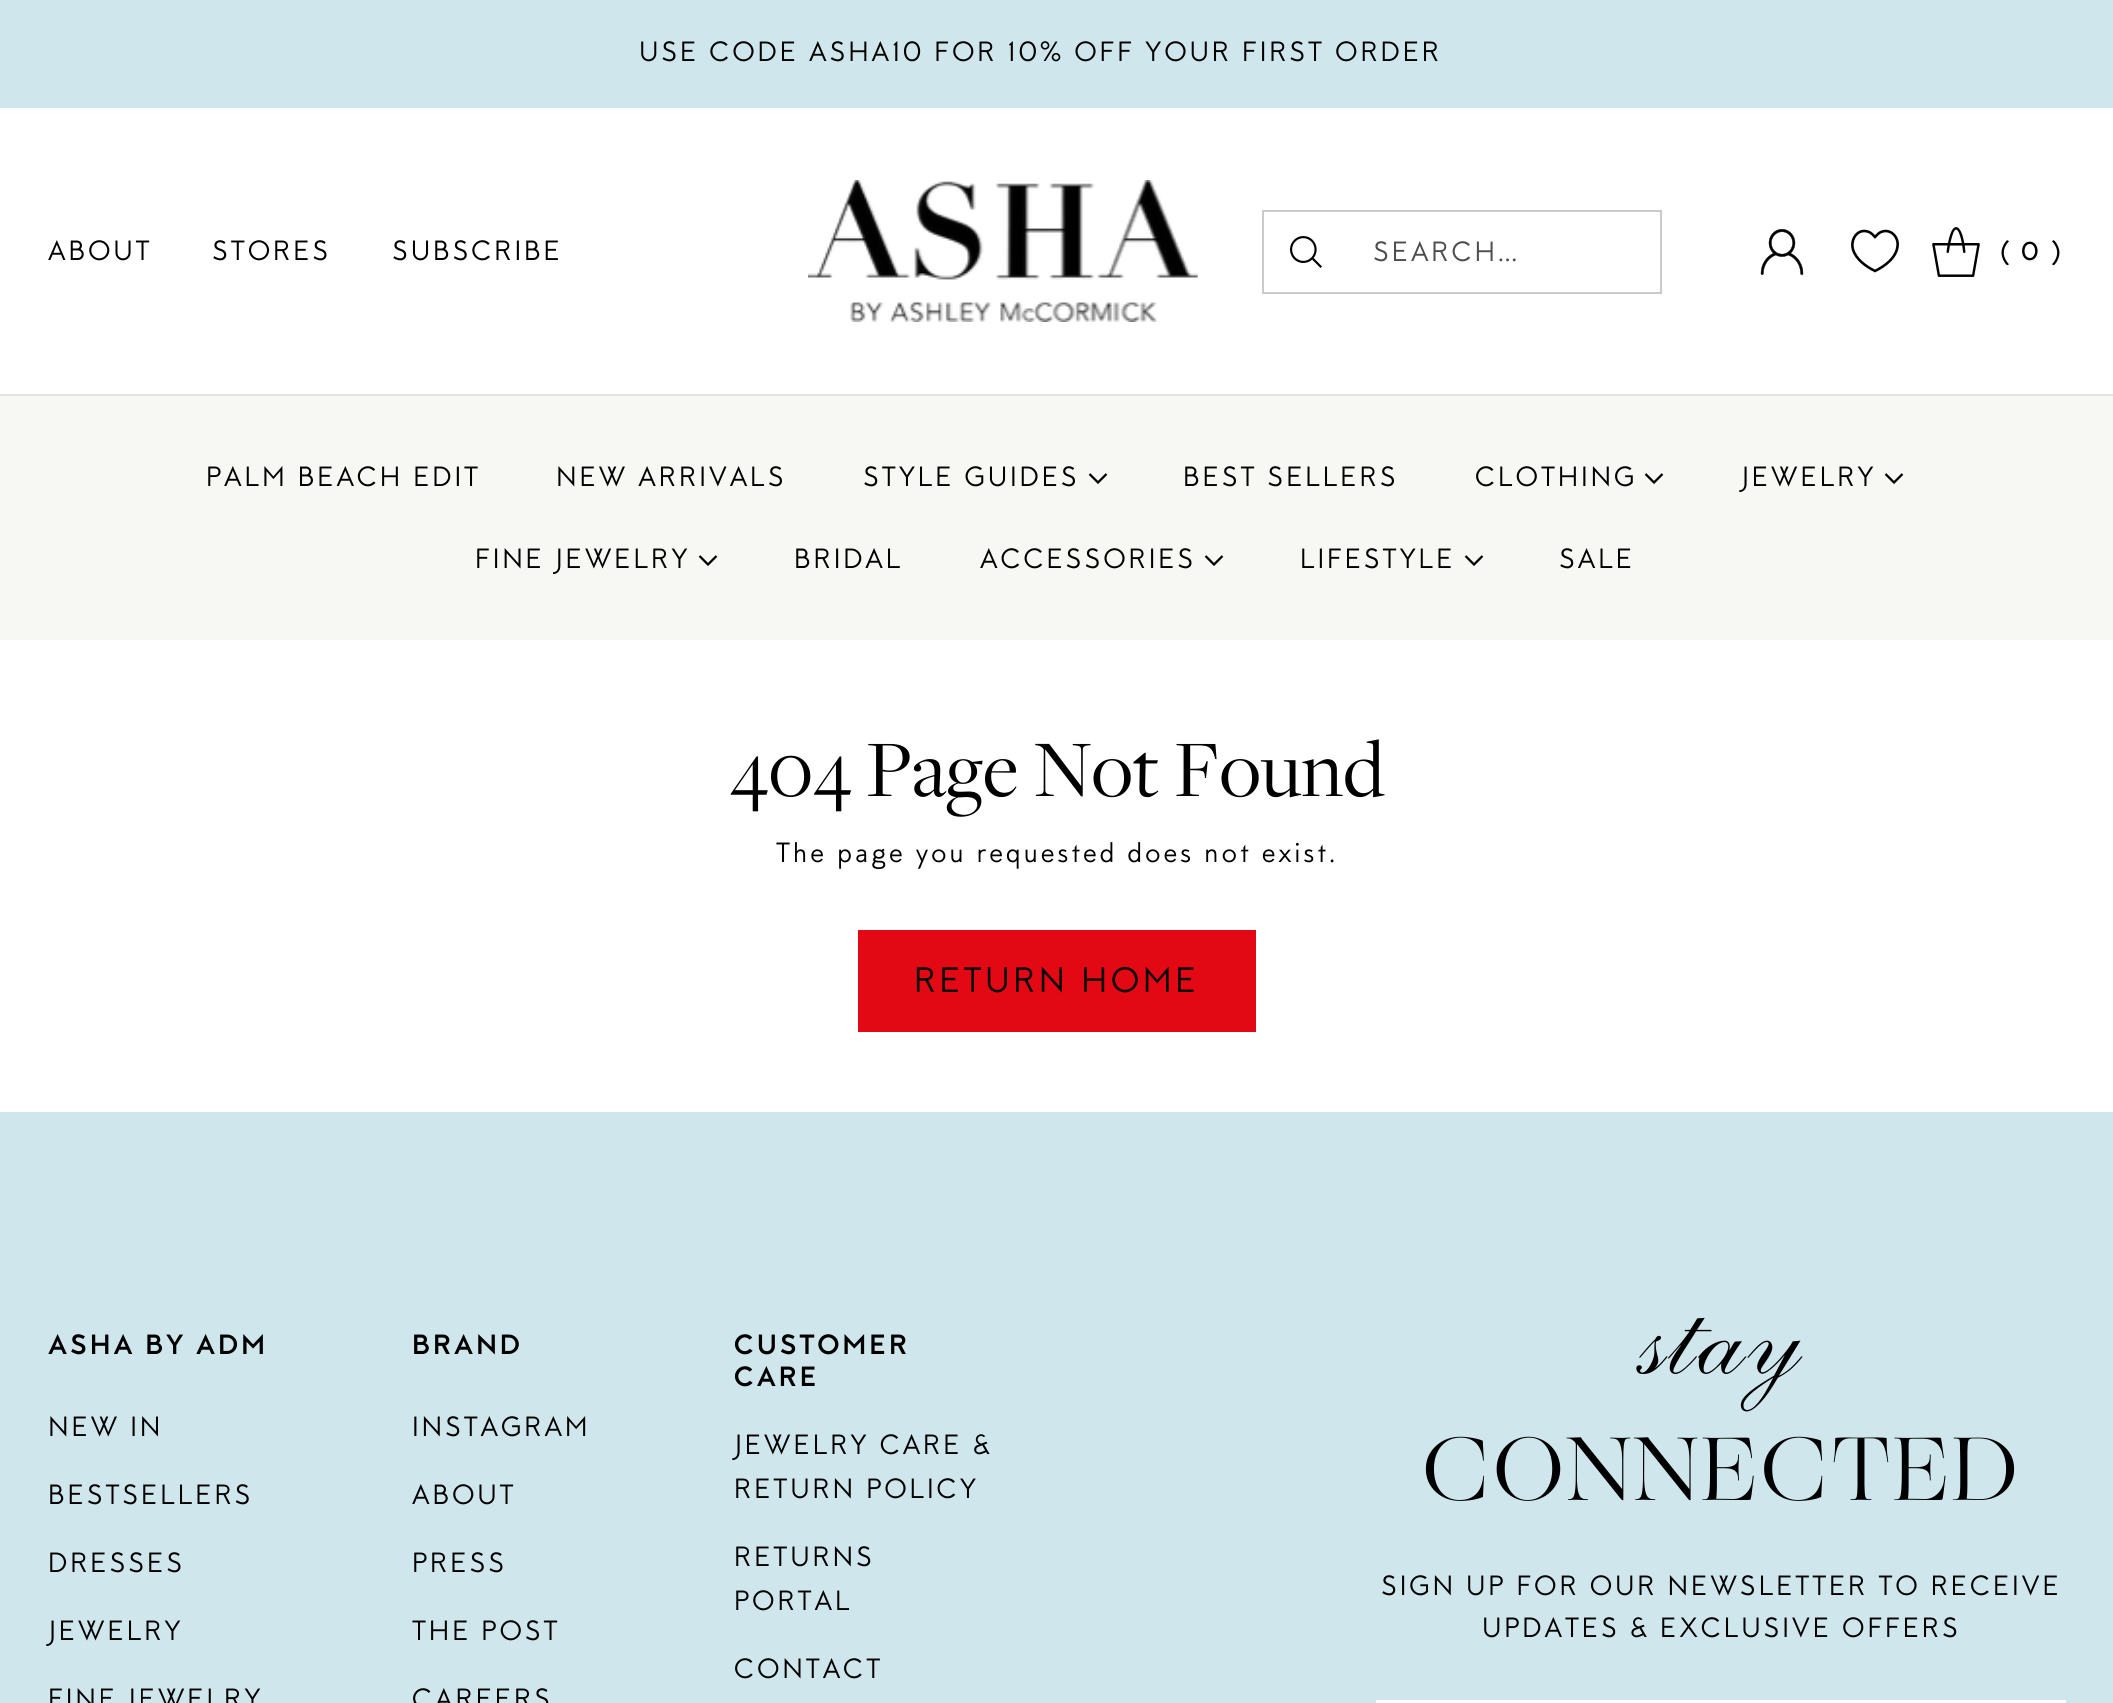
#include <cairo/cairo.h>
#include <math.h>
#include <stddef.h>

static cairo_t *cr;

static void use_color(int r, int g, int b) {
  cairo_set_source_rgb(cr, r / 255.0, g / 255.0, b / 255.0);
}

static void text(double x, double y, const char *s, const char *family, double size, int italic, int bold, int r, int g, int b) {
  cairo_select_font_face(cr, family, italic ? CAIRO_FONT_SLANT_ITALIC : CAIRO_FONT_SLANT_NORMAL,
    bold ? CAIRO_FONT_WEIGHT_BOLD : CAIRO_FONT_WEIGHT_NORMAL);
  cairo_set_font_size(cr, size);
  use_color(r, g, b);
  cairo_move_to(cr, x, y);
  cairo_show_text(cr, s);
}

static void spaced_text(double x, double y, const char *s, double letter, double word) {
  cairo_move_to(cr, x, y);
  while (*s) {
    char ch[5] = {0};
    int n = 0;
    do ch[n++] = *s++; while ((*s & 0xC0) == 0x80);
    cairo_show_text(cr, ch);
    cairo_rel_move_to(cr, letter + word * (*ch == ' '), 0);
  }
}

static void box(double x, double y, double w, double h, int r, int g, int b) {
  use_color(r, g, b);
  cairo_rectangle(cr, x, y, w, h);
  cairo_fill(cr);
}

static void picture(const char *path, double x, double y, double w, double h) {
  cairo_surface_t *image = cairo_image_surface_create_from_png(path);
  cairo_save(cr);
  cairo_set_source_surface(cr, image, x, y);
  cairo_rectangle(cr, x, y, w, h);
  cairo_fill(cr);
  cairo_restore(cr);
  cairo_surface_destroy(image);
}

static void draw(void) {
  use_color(255, 255, 255);
  cairo_paint(cr);
  box(0, 0, 2113, 108, 207, 230, 236);
  picture("img_01.png", 808, 180, 390, 142);
  cairo_rectangle(cr, 1263, 211, 398, 82);
  use_color(202, 202, 204);
  cairo_stroke(cr);
  picture("img_02.png", 1290, 236, 32, 32);
  picture("img_03.png", 1760, 229, 44, 46);
  cairo_new_path(cr);
  cairo_move_to(cr, 1875, 271);
  cairo_curve_to(cr, 1866, 266.5, 1856, 259.5, 1853, 249.5);
  cairo_curve_to(cr, 1850, 239, 1858, 227.5, 1869, 232);
  cairo_curve_to(cr, 1871.5, 233, 1873, 235, 1875, 237);
  cairo_curve_to(cr, 1877, 235, 1878.5, 233, 1881, 232);
  cairo_curve_to(cr, 1890.5, 228, 1899, 237, 1897.5, 246.5);
  cairo_curve_to(cr, 1896, 258, 1885, 266, 1875, 271);
  cairo_close_path(cr);
  use_color(0, 0, 0);
  cairo_set_line_width(cr, 2.6);
  cairo_stroke(cr);
  picture("img_04.png", 1932, 227, 48, 50);
  box(0, 396, 2113, 244, 247, 248, 243);
  box(0, 394, 2113, 2, 227, 228, 221);
  cairo_new_path(cr);
  cairo_move_to(cr, 1089.5, 474);
  cairo_line_to(cr, 1098, 482.5);
  cairo_line_to(cr, 1106.5, 474);
  use_color(0, 0, 0);
  cairo_set_line_width(cr, 2.3);
  cairo_stroke(cr);
  cairo_new_path(cr);
  cairo_move_to(cr, 1645.5, 474);
  cairo_line_to(cr, 1654, 482.5);
  cairo_line_to(cr, 1662.5, 474);
  cairo_stroke(cr);
  cairo_new_path(cr);
  cairo_move_to(cr, 1885.5, 474);
  cairo_line_to(cr, 1894, 482.5);
  cairo_line_to(cr, 1902.5, 474);
  cairo_stroke(cr);
  cairo_new_path(cr);
  cairo_move_to(cr, 699.5, 556);
  cairo_line_to(cr, 708, 564.5);
  cairo_line_to(cr, 716.5, 556);
  cairo_stroke(cr);
  cairo_new_path(cr);
  cairo_move_to(cr, 1205.5, 556);
  cairo_line_to(cr, 1214, 564.5);
  cairo_line_to(cr, 1222.5, 556);
  cairo_stroke(cr);
  cairo_new_path(cr);
  cairo_move_to(cr, 1465.5, 556);
  cairo_line_to(cr, 1474, 564.5);
  cairo_line_to(cr, 1482.5, 556);
  cairo_stroke(cr);
  box(858, 930, 398, 102, 226, 8, 20);
  box(0, 1112, 2113, 591, 207, 230, 237);
  picture("img_05.png", 1636, 1317, 167, 95);
  box(1376, 1700, 690, 3, 255, 255, 255);
  cairo_select_font_face(cr, "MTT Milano", CAIRO_FONT_SLANT_NORMAL, CAIRO_FONT_WEIGHT_NORMAL);
  cairo_set_font_size(cr, 28);
  use_color(0, 0, 0);
  spaced_text(639, 61, "USE CODE ASHA10 FOR 10% OFF YOUR FIRST ORDER", 2.8, 0);
  spaced_text(48, 260, "ABOUT", 2.8, 0);
  spaced_text(212, 260, "STORES", 2.8, 0);
  spaced_text(392, 260, "SUBSCRIBE", 2.8, 0);
  use_color(77, 77, 77);
  spaced_text(1373, 261, "SEARCH…", 2.8, 0);
  cairo_select_font_face(cr, "MTT Milano Medium", CAIRO_FONT_SLANT_NORMAL, CAIRO_FONT_WEIGHT_NORMAL);
  cairo_set_font_size(cr, 26);
  use_color(0, 0, 0);
  spaced_text(1999, 260, "(", 3.5, 0);
  spaced_text(2021, 260, "0", 3, 0);
  spaced_text(2051, 260, ")", 3.5, 0);
  cairo_select_font_face(cr, "MTT Milano", CAIRO_FONT_SLANT_NORMAL, CAIRO_FONT_WEIGHT_NORMAL);
  cairo_set_font_size(cr, 28);
  spaced_text(206, 486, "PALM BEACH EDIT", 2.8, 0);
  spaced_text(556, 486, "NEW ARRIVALS", 2.8, 0);
  spaced_text(863, 486, "STYLE GUIDES", 2.8, 0);
  spaced_text(1183, 486, "BEST SELLERS", 2.8, 0);
  spaced_text(1475, 486, "CLOTHING", 2.8, 0);
  spaced_text(1741, 486, "JEWELRY", 2.8, 0);
  spaced_text(475, 568, "FINE JEWELRY", 2.8, 0);
  spaced_text(794, 568, "BRIDAL", 2.8, 0);
  spaced_text(980, 568, "ACCESSORIES", 2.8, 0);
  spaced_text(1300, 568, "LIFESTYLE", 2.8, 0);
  spaced_text(1559, 568, "SALE", 2.8, 0);
  text(730, 796, "404 Page Not Found", "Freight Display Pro", 83.25, 0, 0, 0, 0, 0);
  cairo_select_font_face(cr, "MTT Milano", CAIRO_FONT_SLANT_NORMAL, CAIRO_FONT_WEIGHT_NORMAL);
  cairo_set_font_size(cr, 28);
  spaced_text(776, 862, "The page you requested does not exist.", 2.8, 0);
  cairo_set_font_size(cr, 35.5);
  spaced_text(914, 992, "RETURN HOME", 3.5, 0);
  cairo_select_font_face(cr, "MTT Milano", CAIRO_FONT_SLANT_NORMAL, CAIRO_FONT_WEIGHT_BOLD);
  cairo_set_font_size(cr, 28);
  spaced_text(48, 1354, "ASHA BY ADM", 2.8, 0);
  cairo_select_font_face(cr, "MTT Milano", CAIRO_FONT_SLANT_NORMAL, CAIRO_FONT_WEIGHT_NORMAL);
  spaced_text(48, 1436, "NEW IN", 2.8, 0);
  spaced_text(48, 1504, "BESTSELLERS", 2.8, 0);
  spaced_text(48, 1572, "DRESSES", 2.8, 0);
  spaced_text(48, 1640, "JEWELRY", 2.8, 0);
  spaced_text(48, 1708, "FINE JEWELRY", 2.8, 0);
  cairo_select_font_face(cr, "MTT Milano", CAIRO_FONT_SLANT_NORMAL, CAIRO_FONT_WEIGHT_BOLD);
  spaced_text(412, 1354, "BRAND", 2.8, 0);
  cairo_select_font_face(cr, "MTT Milano", CAIRO_FONT_SLANT_NORMAL, CAIRO_FONT_WEIGHT_NORMAL);
  spaced_text(412, 1436, "INSTAGRAM", 2.8, 0);
  spaced_text(412, 1504, "ABOUT", 2.8, 0);
  spaced_text(412, 1572, "PRESS", 2.8, 0);
  spaced_text(412, 1640, "THE POST", 2.8, 0);
  spaced_text(412, 1708, "CAREERS", 2.8, 0);
  cairo_select_font_face(cr, "MTT Milano", CAIRO_FONT_SLANT_NORMAL, CAIRO_FONT_WEIGHT_BOLD);
  spaced_text(734, 1354, "CUSTOMER", 2.8, 0);
  spaced_text(734, 1386, "CARE", 2.8, 0);
  cairo_select_font_face(cr, "MTT Milano", CAIRO_FONT_SLANT_NORMAL, CAIRO_FONT_WEIGHT_NORMAL);
  spaced_text(734, 1454, "JEWELRY CARE &", 2.8, 0);
  spaced_text(734, 1498, "RETURN POLICY", 2.8, 0);
  spaced_text(734, 1566, "RETURNS", 2.8, 0);
  spaced_text(734, 1610, "PORTAL", 2.8, 0);
  spaced_text(734, 1678, "CONTACT", 2.8, 0);
  cairo_select_font_face(cr, "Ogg", CAIRO_FONT_SLANT_NORMAL, CAIRO_FONT_WEIGHT_NORMAL);
  cairo_set_font_size(cr, 90);
  spaced_text(1422, 1500, "CONNECTED", 2.8, 0);
  cairo_select_font_face(cr, "MTT Milano", CAIRO_FONT_SLANT_NORMAL, CAIRO_FONT_WEIGHT_NORMAL);
  cairo_set_font_size(cr, 28);
  spaced_text(1381, 1595, "SIGN UP FOR OUR NEWSLETTER TO RECEIVE", 2.8, 0);
  spaced_text(1482, 1637, "UPDATES & EXCLUSIVE OFFERS", 2.8, 0);
}

int main(void) {
  cairo_surface_t *surface = cairo_image_surface_create(CAIRO_FORMAT_RGB24, 2113, 1703);
  cr = cairo_create(surface);
  cairo_font_options_t *options = cairo_font_options_create();
  cairo_font_options_set_hint_metrics(options, CAIRO_HINT_METRICS_OFF);
  cairo_font_options_set_hint_style(options, CAIRO_HINT_STYLE_NONE);
  cairo_set_font_options(cr, options);
  cairo_set_miter_limit(cr, 4);
  draw();
  cairo_surface_write_to_png(surface, "out.png");
  cairo_font_options_destroy(options);
  cairo_destroy(cr);
  cairo_surface_destroy(surface);
  return 0;
}
